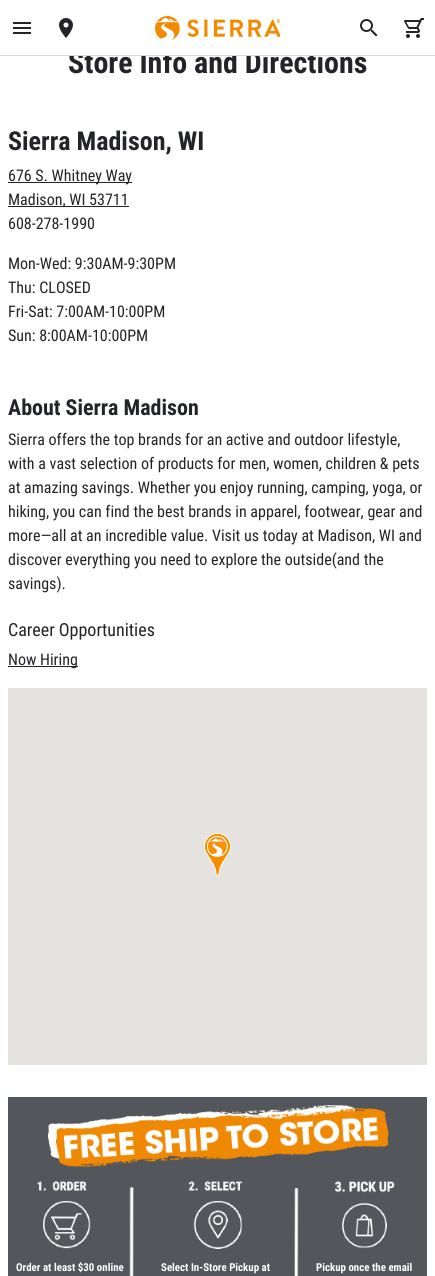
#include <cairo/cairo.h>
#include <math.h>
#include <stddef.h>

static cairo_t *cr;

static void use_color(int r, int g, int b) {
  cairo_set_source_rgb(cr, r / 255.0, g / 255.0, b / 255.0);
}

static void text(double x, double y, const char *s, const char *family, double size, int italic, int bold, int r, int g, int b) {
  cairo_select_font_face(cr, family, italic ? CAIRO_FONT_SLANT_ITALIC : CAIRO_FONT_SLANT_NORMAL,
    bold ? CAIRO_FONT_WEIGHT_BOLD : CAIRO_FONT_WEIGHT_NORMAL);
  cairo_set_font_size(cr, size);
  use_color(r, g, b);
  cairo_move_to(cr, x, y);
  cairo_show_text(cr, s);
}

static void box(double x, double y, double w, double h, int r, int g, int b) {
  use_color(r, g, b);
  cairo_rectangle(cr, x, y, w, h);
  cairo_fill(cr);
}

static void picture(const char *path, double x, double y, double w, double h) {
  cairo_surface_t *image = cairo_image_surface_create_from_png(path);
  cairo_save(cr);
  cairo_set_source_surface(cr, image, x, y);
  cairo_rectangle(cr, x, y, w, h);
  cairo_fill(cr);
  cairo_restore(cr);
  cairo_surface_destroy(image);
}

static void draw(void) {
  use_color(255, 255, 255);
  cairo_paint(cr);
  picture("img_01.png", 13, 22, 18, 12);
  picture("img_02.png", 59, 18, 14, 20);
  picture("img_03.png", 155, 16, 125, 24);
  picture("img_04.png", 360, 19, 18, 18);
  picture("img_05.png", 404, 18, 20, 20);
  box(8, 182, 124, 1, 34, 36, 40);
  box(8, 206, 121, 1, 34, 36, 40);
  box(8, 666, 70, 1, 34, 36, 40);
  box(8, 688, 419, 377, 229, 227, 223);
  picture("img_06.png", 204, 833, 27, 43);
  picture("img_07.png", 8, 1097, 419, 179);
  text(68, 73, "Store Info and Directions", "Roboto Condensed", 30, 0, 1, 34, 36, 40);
  box(0, 55, 435, 1, 219, 219, 222);
  box(69, 50, 254, 5, 255, 255, 255);
  text(8, 150, "Sierra Madison, WI", "Roboto Condensed", 26, 0, 1, 34, 36, 40);
  text(8, 181, "676 S. Whitney Way", "Roboto Condensed", 16, 0, 0, 34, 36, 40);
  text(8, 205, "Madison, WI 53711", "Roboto Condensed", 16, 0, 0, 34, 36, 40);
  text(8, 229, "608-278-1990", "Roboto Condensed", 16, 0, 0, 34, 36, 40);
  text(8, 269, "Mon-Wed: 9:30AM-9:30PM", "Roboto Condensed", 16, 0, 0, 34, 36, 40);
  text(8, 293, "Thu: CLOSED", "Roboto Condensed", 16, 0, 0, 34, 36, 40);
  text(8, 317, "Fri-Sat: 7:00AM-10:00PM", "Roboto Condensed", 16, 0, 0, 34, 36, 40);
  text(8, 341, "Sun: 8:00AM-10:00PM", "Roboto Condensed", 16, 0, 0, 34, 36, 40);
  text(8, 415, "About Sierra Madison", "Roboto Condensed", 22, 0, 1, 34, 36, 40);
  text(8, 445, "Sierra offers the top brands for an active and outdoor lifestyle,", "Roboto Condensed", 16, 0, 0, 34, 36, 40);
  text(8, 469, "with a vast selection of products for men, women, children & pets", "Roboto Condensed", 16, 0, 0, 34, 36, 40);
  text(8, 493, "at amazing savings. Whether you enjoy running, camping, yoga, or", "Roboto Condensed", 16, 0, 0, 34, 36, 40);
  text(8, 517, "hiking, you can find the best brands in apparel, footwear, gear and", "Roboto Condensed", 16, 0, 0, 34, 36, 40);
  text(8, 541, "more—all at an incredible value. Visit us today at Madison, WI and", "Roboto Condensed", 16, 0, 0, 34, 36, 40);
  text(8, 565, "discover everything you need to explore the outside(and the", "Roboto Condensed", 16, 0, 0, 34, 36, 40);
  text(8, 589, "savings).", "Roboto Condensed", 16, 0, 0, 34, 36, 40);
  text(8, 636, "Career Opportunities", "Roboto Condensed", 18, 0, 0, 34, 36, 40);
  text(8, 665, "Now Hiring", "Roboto Condensed", 16, 0, 0, 34, 36, 40);
  text(16, 1271, "Order at least $30 online", "Roboto Condensed", 10.9, 0, 1, 255, 255, 255);
  text(161, 1271, "Select In-Store Pickup at", "Roboto Condensed", 10.9, 0, 1, 255, 255, 255);
  text(316, 1271, "Pickup once the email", "Roboto Condensed", 10.9, 0, 1, 255, 255, 255);
}

int main(void) {
  cairo_surface_t *surface = cairo_image_surface_create(CAIRO_FORMAT_RGB24, 435, 1276);
  cr = cairo_create(surface);
  cairo_font_options_t *options = cairo_font_options_create();
  cairo_font_options_set_hint_metrics(options, CAIRO_HINT_METRICS_OFF);
  cairo_font_options_set_hint_style(options, CAIRO_HINT_STYLE_NONE);
  cairo_set_font_options(cr, options);
  cairo_set_miter_limit(cr, 4);
  draw();
  cairo_surface_write_to_png(surface, "out.png");
  cairo_font_options_destroy(options);
  cairo_destroy(cr);
  cairo_surface_destroy(surface);
  return 0;
}
